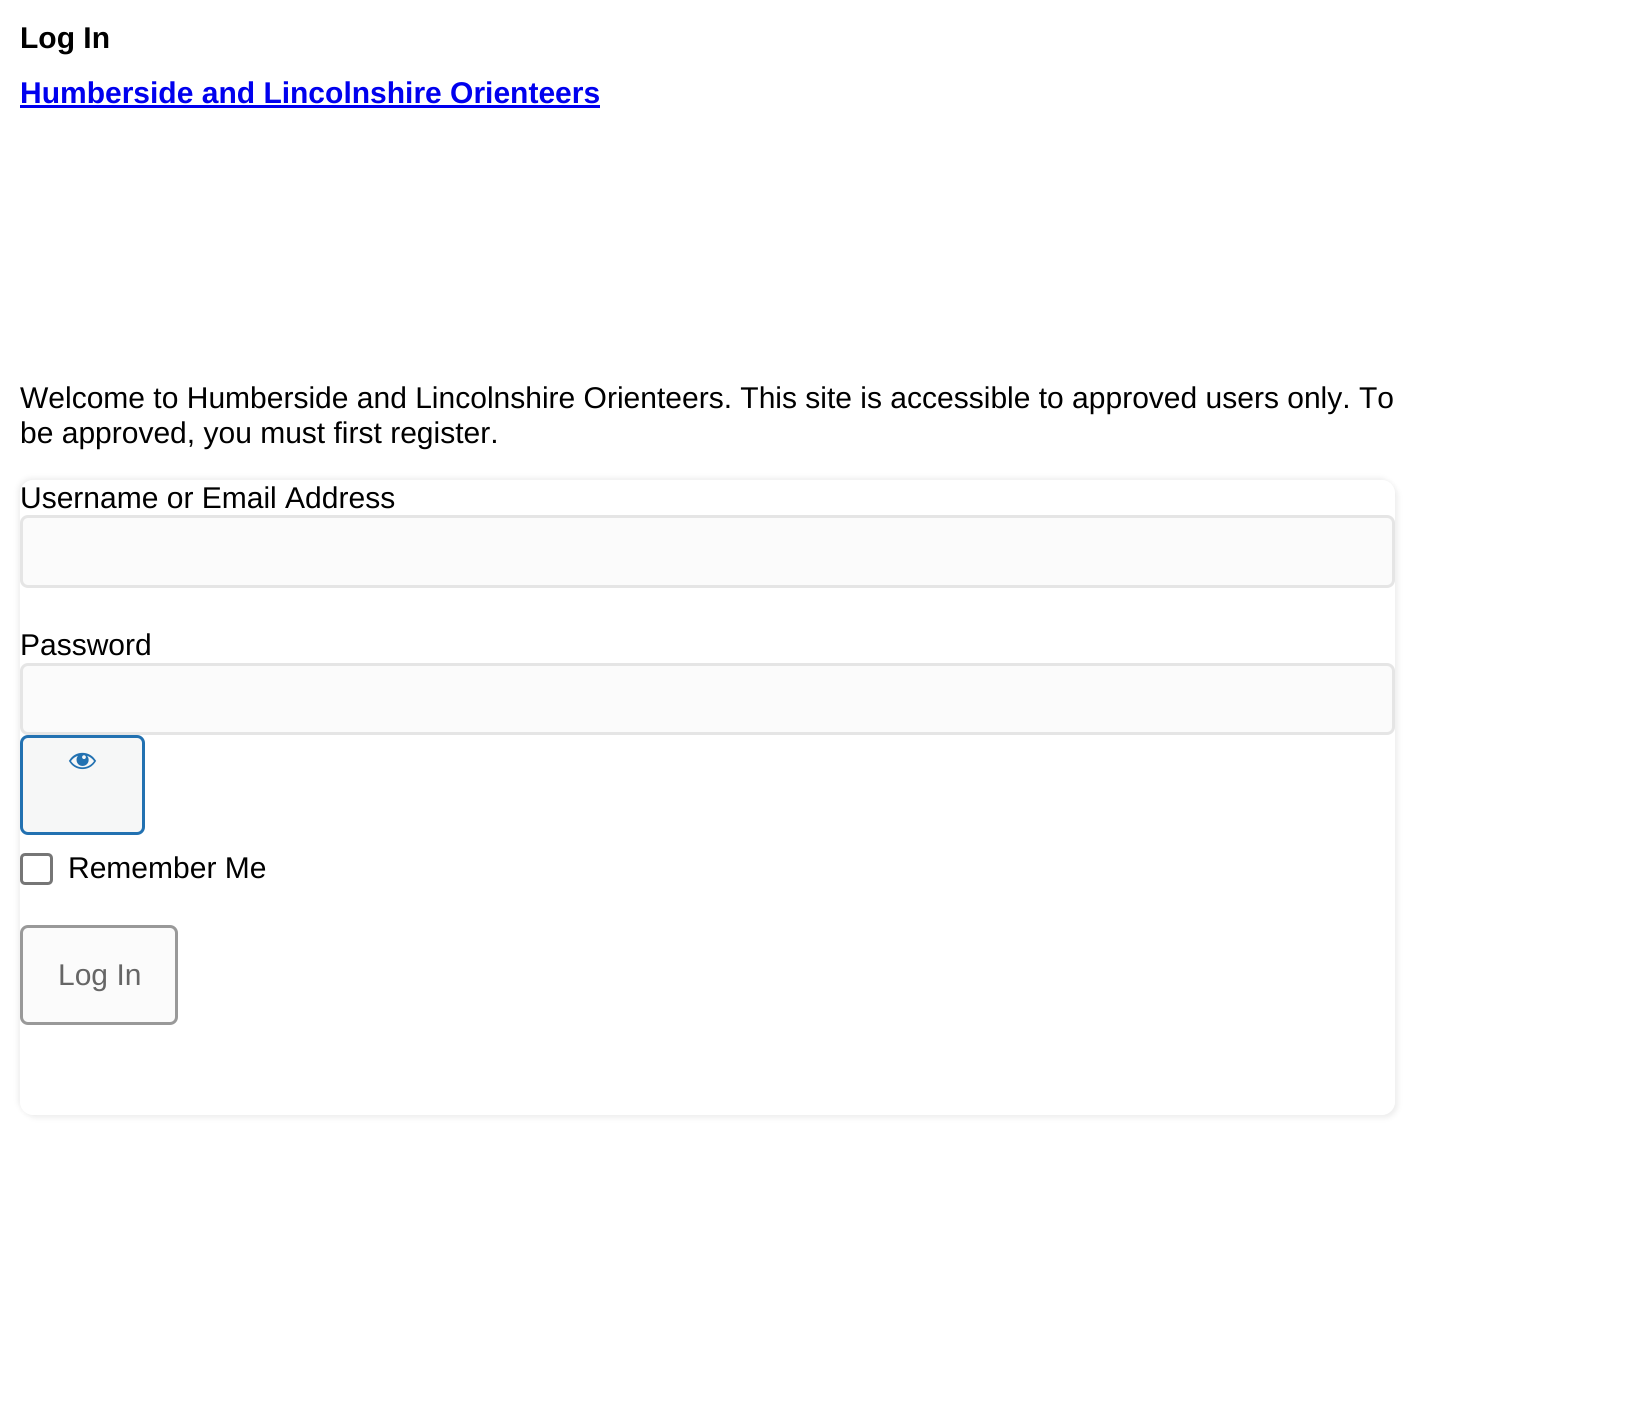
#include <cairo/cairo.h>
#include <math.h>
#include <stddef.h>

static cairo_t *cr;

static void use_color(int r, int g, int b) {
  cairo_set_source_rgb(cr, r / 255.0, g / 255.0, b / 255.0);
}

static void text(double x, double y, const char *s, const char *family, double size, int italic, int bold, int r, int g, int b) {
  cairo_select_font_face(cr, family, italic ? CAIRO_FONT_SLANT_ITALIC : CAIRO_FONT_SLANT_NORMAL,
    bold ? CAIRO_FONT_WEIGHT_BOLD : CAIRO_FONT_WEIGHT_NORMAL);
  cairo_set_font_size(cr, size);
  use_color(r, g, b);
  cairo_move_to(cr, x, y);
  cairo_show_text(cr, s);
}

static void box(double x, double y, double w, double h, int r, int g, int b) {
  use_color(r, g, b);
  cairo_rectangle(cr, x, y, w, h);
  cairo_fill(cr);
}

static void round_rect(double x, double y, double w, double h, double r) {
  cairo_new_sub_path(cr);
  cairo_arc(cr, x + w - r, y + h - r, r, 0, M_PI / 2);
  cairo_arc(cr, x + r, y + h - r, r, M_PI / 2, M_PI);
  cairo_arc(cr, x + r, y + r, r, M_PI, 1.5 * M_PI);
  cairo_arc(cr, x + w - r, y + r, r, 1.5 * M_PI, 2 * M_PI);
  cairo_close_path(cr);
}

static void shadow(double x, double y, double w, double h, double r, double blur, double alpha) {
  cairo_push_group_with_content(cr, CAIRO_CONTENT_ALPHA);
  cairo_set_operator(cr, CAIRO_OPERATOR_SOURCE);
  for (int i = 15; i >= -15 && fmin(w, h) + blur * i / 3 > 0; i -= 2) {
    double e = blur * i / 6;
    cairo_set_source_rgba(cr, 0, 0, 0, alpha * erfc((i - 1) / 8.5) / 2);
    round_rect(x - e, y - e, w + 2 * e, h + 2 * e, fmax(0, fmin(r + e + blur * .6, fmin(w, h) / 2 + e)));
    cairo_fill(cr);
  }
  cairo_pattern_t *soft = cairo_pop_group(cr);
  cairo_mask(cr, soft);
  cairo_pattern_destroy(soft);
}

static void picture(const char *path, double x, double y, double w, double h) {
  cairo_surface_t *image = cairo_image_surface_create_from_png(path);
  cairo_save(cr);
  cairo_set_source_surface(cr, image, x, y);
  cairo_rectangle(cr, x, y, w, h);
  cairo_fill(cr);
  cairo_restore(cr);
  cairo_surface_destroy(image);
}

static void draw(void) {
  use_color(255, 255, 255);
  cairo_paint(cr);
  box(20, 105, 580, 3, 0, 0, 238);
  cairo_save(cr);
  cairo_set_fill_rule(cr, CAIRO_FILL_RULE_EVEN_ODD);
  cairo_new_path(cr);
  cairo_move_to(cr, 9, 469);
  cairo_line_to(cr, 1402, 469);
  cairo_line_to(cr, 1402, 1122);
  cairo_line_to(cr, 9, 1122);
  cairo_close_path(cr);
  cairo_move_to(cr, 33, 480);
  cairo_line_to(cr, 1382, 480);
  cairo_curve_to(cr, 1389, 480, 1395, 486, 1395, 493);
  cairo_line_to(cr, 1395, 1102);
  cairo_curve_to(cr, 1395, 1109, 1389, 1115, 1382, 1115);
  cairo_line_to(cr, 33, 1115);
  cairo_curve_to(cr, 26, 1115, 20, 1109, 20, 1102);
  cairo_line_to(cr, 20, 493);
  cairo_curve_to(cr, 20, 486, 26, 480, 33, 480);
  cairo_close_path(cr);
  cairo_clip(cr);
  use_color(238, 238, 238);
  shadow(18, 478, 1375, 635, 13, 2.5, 1);
  cairo_restore(cr);
  cairo_save(cr);
  cairo_set_fill_rule(cr, CAIRO_FILL_RULE_EVEN_ODD);
  cairo_new_path(cr);
  cairo_move_to(cr, 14, 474);
  cairo_line_to(cr, 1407, 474);
  cairo_line_to(cr, 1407, 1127);
  cairo_line_to(cr, 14, 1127);
  cairo_close_path(cr);
  cairo_move_to(cr, 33, 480);
  cairo_line_to(cr, 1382, 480);
  cairo_curve_to(cr, 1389, 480, 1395, 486, 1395, 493);
  cairo_line_to(cr, 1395, 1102);
  cairo_curve_to(cr, 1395, 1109, 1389, 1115, 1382, 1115);
  cairo_line_to(cr, 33, 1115);
  cairo_curve_to(cr, 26, 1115, 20, 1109, 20, 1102);
  cairo_line_to(cr, 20, 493);
  cairo_curve_to(cr, 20, 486, 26, 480, 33, 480);
  cairo_close_path(cr);
  cairo_clip(cr);
  use_color(238, 238, 238);
  shadow(23, 483, 1375, 635, 13, 2.5, 1);
  cairo_restore(cr);
  use_color(251, 251, 251);
  round_rect(21.5, 516.5, 1372, 70, 6.5);
  cairo_fill_preserve(cr);
  use_color(229, 229, 229);
  cairo_set_line_width(cr, 3);
  cairo_stroke(cr);
  use_color(251, 251, 251);
  round_rect(21.5, 664.5, 1372, 69, 6.5);
  cairo_fill_preserve(cr);
  use_color(229, 229, 229);
  cairo_stroke(cr);
  use_color(246, 247, 247);
  round_rect(21.5, 736.5, 122, 97, 6.5);
  cairo_fill_preserve(cr);
  use_color(34, 113, 177);
  cairo_stroke(cr);
  picture("img_01.png", 68, 752, 29, 18);
  round_rect(21.5, 854.5, 30, 29, 3.5);
  use_color(118, 118, 118);
  cairo_stroke(cr);
  use_color(251, 251, 251);
  round_rect(21.5, 926.5, 155, 97, 6.5);
  cairo_fill_preserve(cr);
  use_color(153, 153, 153);
  cairo_stroke(cr);
  text(20, 48, "Log In", "Liberation Sans", 30, 0, 1, 0, 0, 0);
  text(20, 103, "Humberside and Lincolnshire Orienteers", "Liberation Sans", 30, 0, 1, 0, 0, 238);
  text(20, 408, "Welcome to Humberside and Lincolnshire Orienteers. This site is accessible to approved users only. To", "Liberation Sans", 30, 0, 0, 0, 0, 0);
  text(20, 443, "be approved, you must first register.", "Liberation Sans", 30, 0, 0, 0, 0, 0);
  text(20, 508, "Username or Email Address", "Liberation Sans", 30, 0, 0, 0, 0, 0);
  text(20, 655, "Password", "Liberation Sans", 30, 0, 0, 0, 0, 0);
  text(68, 878, "Remember Me", "Liberation Sans", 30, 0, 0, 0, 0, 0);
  text(58, 985, "Log In", "Liberation Sans", 30, 0, 0, 102, 102, 102);
}

int main(void) {
  cairo_surface_t *surface = cairo_image_surface_create(CAIRO_FORMAT_RGB24, 1644, 1422);
  cr = cairo_create(surface);
  cairo_font_options_t *options = cairo_font_options_create();
  cairo_font_options_set_hint_metrics(options, CAIRO_HINT_METRICS_OFF);
  cairo_font_options_set_hint_style(options, CAIRO_HINT_STYLE_NONE);
  cairo_set_font_options(cr, options);
  cairo_set_miter_limit(cr, 4);
  draw();
  cairo_surface_write_to_png(surface, "out.png");
  cairo_font_options_destroy(options);
  cairo_destroy(cr);
  cairo_surface_destroy(surface);
  return 0;
}
